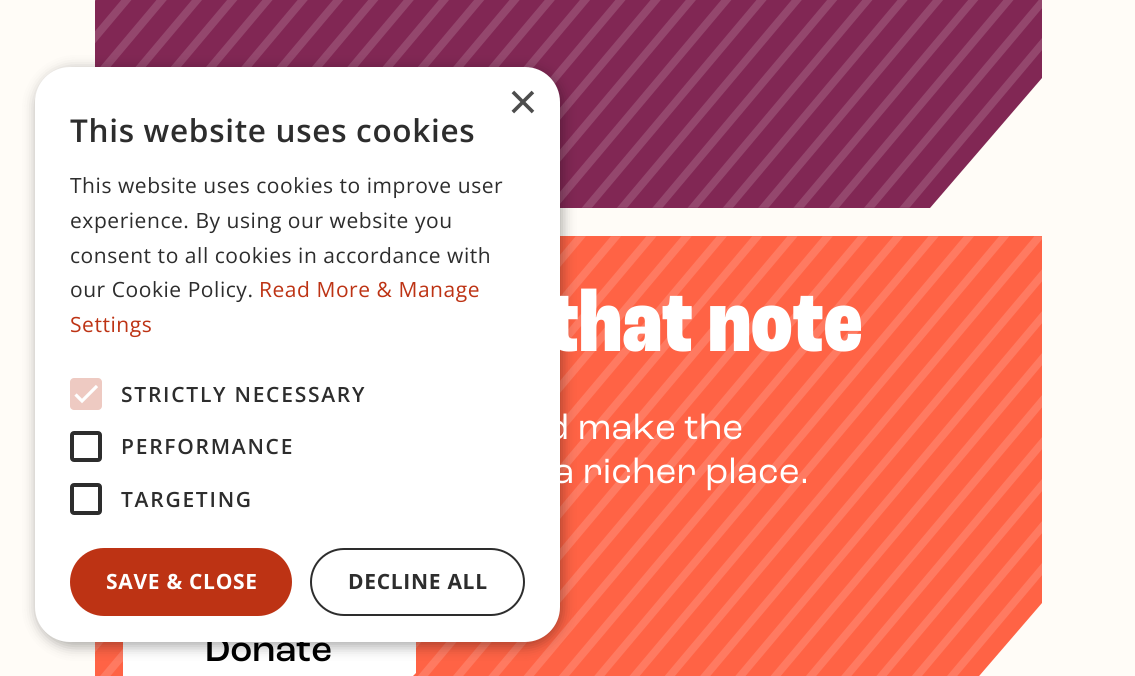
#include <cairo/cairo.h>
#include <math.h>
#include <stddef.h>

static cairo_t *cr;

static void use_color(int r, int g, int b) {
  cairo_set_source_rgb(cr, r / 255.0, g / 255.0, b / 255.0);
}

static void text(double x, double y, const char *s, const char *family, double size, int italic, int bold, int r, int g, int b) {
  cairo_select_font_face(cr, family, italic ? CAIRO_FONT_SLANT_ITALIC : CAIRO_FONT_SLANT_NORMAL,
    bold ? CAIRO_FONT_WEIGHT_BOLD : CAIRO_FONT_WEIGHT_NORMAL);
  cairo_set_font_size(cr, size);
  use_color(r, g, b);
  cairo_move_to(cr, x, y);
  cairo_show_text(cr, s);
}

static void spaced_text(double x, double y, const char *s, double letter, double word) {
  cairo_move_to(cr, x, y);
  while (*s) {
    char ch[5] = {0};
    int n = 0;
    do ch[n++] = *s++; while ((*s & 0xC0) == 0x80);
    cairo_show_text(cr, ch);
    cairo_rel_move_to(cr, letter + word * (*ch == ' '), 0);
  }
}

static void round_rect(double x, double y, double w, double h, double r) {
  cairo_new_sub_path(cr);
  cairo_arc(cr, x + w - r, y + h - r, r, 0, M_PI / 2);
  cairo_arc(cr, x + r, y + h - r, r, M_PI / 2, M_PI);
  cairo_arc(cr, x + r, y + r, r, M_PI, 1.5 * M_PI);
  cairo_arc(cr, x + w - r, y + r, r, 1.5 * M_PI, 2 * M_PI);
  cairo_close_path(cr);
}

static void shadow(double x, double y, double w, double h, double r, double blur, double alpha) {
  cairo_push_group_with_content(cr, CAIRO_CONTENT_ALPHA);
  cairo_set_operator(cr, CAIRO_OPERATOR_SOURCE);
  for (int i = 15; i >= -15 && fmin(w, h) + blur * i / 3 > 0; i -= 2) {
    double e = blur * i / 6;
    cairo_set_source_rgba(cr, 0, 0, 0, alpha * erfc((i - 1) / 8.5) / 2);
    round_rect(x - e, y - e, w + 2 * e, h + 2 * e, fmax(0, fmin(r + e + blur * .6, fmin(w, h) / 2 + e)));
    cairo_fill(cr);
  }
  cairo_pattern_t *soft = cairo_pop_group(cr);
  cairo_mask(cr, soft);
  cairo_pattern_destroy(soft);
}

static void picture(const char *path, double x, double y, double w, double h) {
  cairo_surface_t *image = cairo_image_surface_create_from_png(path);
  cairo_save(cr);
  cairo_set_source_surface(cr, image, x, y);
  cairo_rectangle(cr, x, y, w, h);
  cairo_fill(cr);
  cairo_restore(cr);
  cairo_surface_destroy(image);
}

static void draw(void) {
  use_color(255, 252, 247);
  cairo_paint(cr);
  use_color(129, 39, 84);
  cairo_new_path(cr);
  cairo_move_to(cr, 95, -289);
  cairo_line_to(cr, 1042, -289);
  cairo_line_to(cr, 1042, 78);
  cairo_line_to(cr, 930, 208);
  cairo_line_to(cr, 95, 208);
  cairo_close_path(cr);
  cairo_fill(cr);
  picture("img_01.png", 95, 0, 947, 208);
  use_color(255, 99, 69);
  cairo_new_path(cr);
  cairo_move_to(cr, 95, 236);
  cairo_line_to(cr, 1042, 236);
  cairo_line_to(cr, 1042, 603);
  cairo_line_to(cr, 930, 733);
  cairo_line_to(cr, 95, 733);
  cairo_close_path(cr);
  cairo_fill(cr);
  picture("img_02.png", 95, 236, 947, 440);
  use_color(255, 255, 255);
  cairo_new_path(cr);
  cairo_move_to(cr, 123, 607);
  cairo_line_to(cr, 416, 607);
  cairo_line_to(cr, 416, 673);
  cairo_line_to(cr, 398, 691);
  cairo_line_to(cr, 123, 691);
  cairo_close_path(cr);
  cairo_fill(cr);
  use_color(0, 0, 0);
  shadow(37, 70, 525, 576, 35, 7, 0.35);
  text(548, 351, "that note", "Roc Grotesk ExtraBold", 91, 0, 0, 255, 255, 255);
  text(546, 439, "d make the", "Roc Grotesk", 36.75, 0, 0, 255, 255, 255);
  text(553, 483, "a richer place.", "Roc Grotesk", 36.75, 0, 0, 255, 255, 255);
  text(205, 661, "Donate", "Roc Grotesk Medium", 36.75, 0, 0, 0, 0, 0);
  use_color(255, 255, 255);
  round_rect(35, 67, 525, 575, 35);
  cairo_fill(cr);
  text(508, 119, "×", "Liberation Sans", 51, 0, 0, 77, 77, 77);
  round_rect(72, 485, 28, 28, 2);
  use_color(45, 45, 45);
  cairo_set_line_width(cr, 4);
  cairo_stroke(cr);
  round_rect(72, 433, 28, 27, 2);
  cairo_stroke(cr);
  use_color(238, 202, 194);
  round_rect(70, 378, 32, 32, 4);
  cairo_fill(cr);
  cairo_new_path(cr);
  cairo_move_to(cr, 75.5, 394.5);
  cairo_line_to(cr, 82, 401);
  cairo_line_to(cr, 97, 386);
  use_color(255, 255, 255);
  cairo_set_line_width(cr, 3.2);
  cairo_stroke(cr);
  round_rect(311, 549, 213, 66, 33);
  use_color(45, 45, 45);
  cairo_set_line_width(cr, 2);
  cairo_stroke(cr);
  cairo_select_font_face(cr, "Open Sans", CAIRO_FONT_SLANT_NORMAL, CAIRO_FONT_WEIGHT_BOLD);
  cairo_set_font_size(cr, 21);
  spaced_text(348, 589, "DECLINE ALL", 0.7, 0);
  use_color(189, 51, 20);
  round_rect(70, 548, 222, 68, 34);
  cairo_fill(cr);
  use_color(255, 255, 255);
  spaced_text(106, 589, "SAVE & CLOSE", 0.7, 0);
  cairo_select_font_face(cr, "Open Sans SemiBold", CAIRO_FONT_SLANT_NORMAL, CAIRO_FONT_WEIGHT_NORMAL);
  use_color(45, 45, 45);
  spaced_text(121, 507, "TARGETING", 1.75, 0);
  spaced_text(121, 454, "PERFORMANCE", 1.75, 0);
  spaced_text(121, 402, "STRICTLY NECESSARY", 1.75, 0);
  cairo_select_font_face(cr, "Open Sans", CAIRO_FONT_SLANT_NORMAL, CAIRO_FONT_WEIGHT_NORMAL);
  use_color(189, 51, 20);
  spaced_text(70, 332, "Settings", 0.55, 0);
  spaced_text(259, 297, "Read More & Manage", 0.55, 0);
  use_color(45, 45, 45);
  spaced_text(70, 297, "our Cookie Policy.", 0.55, 0);
  spaced_text(70, 263, "consent to all cookies in accordance with", 0.55, 0);
  spaced_text(70, 228, "experience. By using our website you", 0.55, 0);
  spaced_text(70, 193, "This website uses cookies to improve user", 0.55, 0);
  cairo_select_font_face(cr, "Open Sans SemiBold", CAIRO_FONT_SLANT_NORMAL, CAIRO_FONT_WEIGHT_NORMAL);
  cairo_set_font_size(cr, 31.5);
  spaced_text(70, 142, "This website uses cookies", 0.7, 0);
}

int main(void) {
  cairo_surface_t *surface = cairo_image_surface_create(CAIRO_FORMAT_RGB24, 1135, 676);
  cr = cairo_create(surface);
  cairo_font_options_t *options = cairo_font_options_create();
  cairo_font_options_set_hint_metrics(options, CAIRO_HINT_METRICS_OFF);
  cairo_font_options_set_hint_style(options, CAIRO_HINT_STYLE_NONE);
  cairo_set_font_options(cr, options);
  cairo_set_miter_limit(cr, 4);
  draw();
  cairo_surface_write_to_png(surface, "out.png");
  cairo_font_options_destroy(options);
  cairo_destroy(cr);
  cairo_surface_destroy(surface);
  return 0;
}
